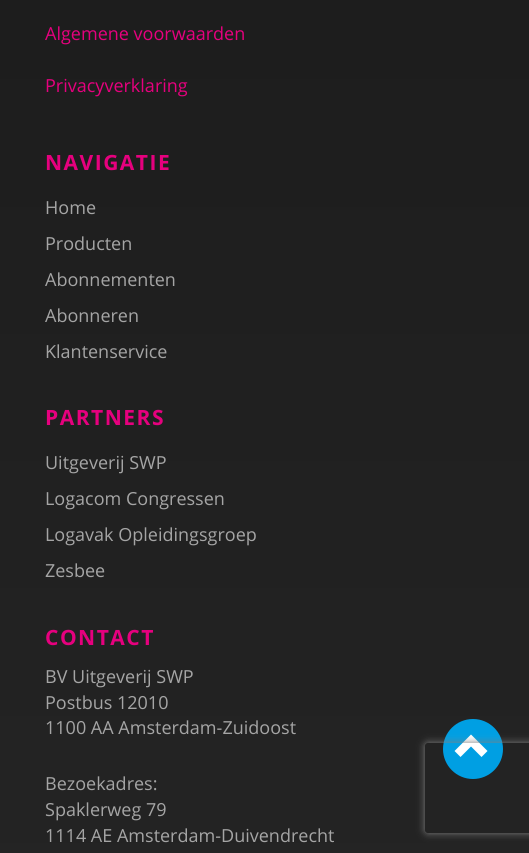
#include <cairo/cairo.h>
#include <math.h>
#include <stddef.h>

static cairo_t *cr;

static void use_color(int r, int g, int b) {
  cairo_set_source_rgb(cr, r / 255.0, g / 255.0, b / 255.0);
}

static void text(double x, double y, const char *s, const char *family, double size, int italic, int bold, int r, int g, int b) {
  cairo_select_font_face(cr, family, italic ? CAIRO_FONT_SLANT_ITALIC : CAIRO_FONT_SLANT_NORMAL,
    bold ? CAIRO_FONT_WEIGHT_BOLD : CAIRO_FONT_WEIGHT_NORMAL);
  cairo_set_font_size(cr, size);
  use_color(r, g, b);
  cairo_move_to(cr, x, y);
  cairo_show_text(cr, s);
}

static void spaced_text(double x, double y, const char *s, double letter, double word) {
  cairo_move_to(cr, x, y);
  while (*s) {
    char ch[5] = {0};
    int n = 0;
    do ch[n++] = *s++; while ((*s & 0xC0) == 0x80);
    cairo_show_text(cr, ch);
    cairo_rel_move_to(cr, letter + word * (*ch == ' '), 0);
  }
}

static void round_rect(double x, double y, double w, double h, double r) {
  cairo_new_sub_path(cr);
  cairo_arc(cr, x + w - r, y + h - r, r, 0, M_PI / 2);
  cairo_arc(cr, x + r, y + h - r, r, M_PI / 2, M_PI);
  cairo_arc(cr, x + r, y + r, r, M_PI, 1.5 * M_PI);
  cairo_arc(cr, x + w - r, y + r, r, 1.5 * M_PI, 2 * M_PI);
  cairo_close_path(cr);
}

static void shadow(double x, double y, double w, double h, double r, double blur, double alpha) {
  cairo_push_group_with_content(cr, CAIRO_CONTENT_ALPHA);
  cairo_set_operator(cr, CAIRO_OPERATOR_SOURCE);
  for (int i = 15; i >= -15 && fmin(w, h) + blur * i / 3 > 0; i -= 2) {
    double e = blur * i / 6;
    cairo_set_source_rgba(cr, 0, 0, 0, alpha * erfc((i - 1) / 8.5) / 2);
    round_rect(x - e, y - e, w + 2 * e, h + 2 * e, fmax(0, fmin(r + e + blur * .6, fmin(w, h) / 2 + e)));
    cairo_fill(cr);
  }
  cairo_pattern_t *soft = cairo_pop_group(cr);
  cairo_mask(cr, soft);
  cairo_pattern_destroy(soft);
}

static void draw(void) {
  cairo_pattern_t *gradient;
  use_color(255, 255, 255);
  cairo_paint(cr);
  gradient = cairo_pattern_create_linear(265, 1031, 265, -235);
  cairo_pattern_add_color_stop_rgba(gradient, 0, 0.145, 0.145, 0.145, 1);
  cairo_pattern_add_color_stop_rgba(gradient, 1, 0.106, 0.106, 0.106, 1);
  cairo_set_source(cr, gradient);
  cairo_pattern_destroy(gradient);
  cairo_rectangle(cr, 0, 0, 529, 853);
  cairo_fill(cr);
  use_color(0, 159, 227);
  cairo_arc(cr, 473, 749, 30, 0, 2 * M_PI);
  cairo_fill(cr);
  use_color(255, 255, 255);
  cairo_new_path(cr);
  cairo_move_to(cr, 487.5, 751);
  cairo_line_to(cr, 481.5, 757);
  cairo_line_to(cr, 471, 746.5);
  cairo_line_to(cr, 460.5, 757);
  cairo_line_to(cr, 454.5, 751);
  cairo_line_to(cr, 471, 734.5);
  cairo_close_path(cr);
  cairo_fill(cr);
  cairo_save(cr);
  cairo_set_fill_rule(cr, CAIRO_FILL_RULE_EVEN_ODD);
  cairo_new_path(cr);
  cairo_move_to(cr, 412, 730);
  cairo_line_to(cr, 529, 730);
  cairo_line_to(cr, 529, 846);
  cairo_line_to(cr, 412, 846);
  cairo_close_path(cr);
  cairo_move_to(cr, 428, 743);
  cairo_line_to(cr, 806, 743);
  cairo_curve_to(cr, 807.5, 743, 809, 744.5, 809, 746);
  cairo_line_to(cr, 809, 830);
  cairo_curve_to(cr, 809, 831.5, 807.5, 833, 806, 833);
  cairo_line_to(cr, 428, 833);
  cairo_curve_to(cr, 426.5, 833, 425, 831.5, 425, 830);
  cairo_line_to(cr, 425, 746);
  cairo_curve_to(cr, 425, 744.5, 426.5, 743, 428, 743);
  cairo_close_path(cr);
  cairo_clip(cr);
  use_color(128, 128, 128);
  shadow(425, 743, 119, 90, 3, 4, 1);
  cairo_restore(cr);
  text(45, 40, "Algemene voorwaarden", "Open Sans", 18, 0, 0, 230, 0, 126);
  text(45, 92, "Privacyverklaring", "Open Sans", 18, 0, 0, 230, 0, 126);
  cairo_select_font_face(cr, "Open Sans", CAIRO_FONT_SLANT_NORMAL, CAIRO_FONT_WEIGHT_BOLD);
  cairo_set_font_size(cr, 21);
  spaced_text(45, 170, "NAVIGATIE", 1.5, 0);
  text(45, 214, "Home", "Open Sans", 18, 0, 0, 165, 165, 165);
  text(45, 250, "Producten", "Open Sans", 18, 0, 0, 165, 165, 165);
  text(45, 286, "Abonnementen", "Open Sans", 18, 0, 0, 165, 165, 165);
  text(45, 322, "Abonneren", "Open Sans", 18, 0, 0, 165, 165, 165);
  text(45, 358, "Klantenservice", "Open Sans", 18, 0, 0, 165, 165, 165);
  cairo_select_font_face(cr, "Open Sans", CAIRO_FONT_SLANT_NORMAL, CAIRO_FONT_WEIGHT_BOLD);
  cairo_set_font_size(cr, 21);
  use_color(230, 0, 126);
  spaced_text(45, 425, "PARTNERS", 1.5, 0);
  text(45, 469, "Uitgeverij SWP", "Open Sans", 18, 0, 0, 165, 165, 165);
  text(45, 505, "Logacom Congressen", "Open Sans", 18, 0, 0, 165, 165, 165);
  text(45, 541, "Logavak Opleidingsgroep", "Open Sans", 18, 0, 0, 165, 165, 165);
  text(45, 577, "Zesbee", "Open Sans", 18, 0, 0, 165, 165, 165);
  cairo_select_font_face(cr, "Open Sans", CAIRO_FONT_SLANT_NORMAL, CAIRO_FONT_WEIGHT_BOLD);
  cairo_set_font_size(cr, 21);
  use_color(230, 0, 126);
  spaced_text(45, 645, "CONTACT", 1.5, 0);
  text(45, 683, "BV Uitgeverij SWP", "Open Sans", 18, 0, 0, 165, 165, 165);
  text(45, 709, "Postbus 12010", "Open Sans", 18, 0, 0, 165, 165, 165);
  text(45, 734, "1100 AA Amsterdam-Zuidoost", "Open Sans", 18, 0, 0, 165, 165, 165);
  text(45, 790, "Bezoekadres:", "Open Sans", 18, 0, 0, 165, 165, 165);
  text(45, 816, "Spaklerweg 79", "Open Sans", 18, 0, 0, 165, 165, 165);
  text(45, 842, "1114 AE Amsterdam-Duivendrecht", "Open Sans", 18, 0, 0, 165, 165, 165);
}

int main(void) {
  cairo_surface_t *surface = cairo_image_surface_create(CAIRO_FORMAT_RGB24, 529, 853);
  cr = cairo_create(surface);
  cairo_font_options_t *options = cairo_font_options_create();
  cairo_font_options_set_hint_metrics(options, CAIRO_HINT_METRICS_OFF);
  cairo_font_options_set_hint_style(options, CAIRO_HINT_STYLE_NONE);
  cairo_set_font_options(cr, options);
  cairo_set_miter_limit(cr, 4);
  draw();
  cairo_surface_write_to_png(surface, "out.png");
  cairo_font_options_destroy(options);
  cairo_destroy(cr);
  cairo_surface_destroy(surface);
  return 0;
}
